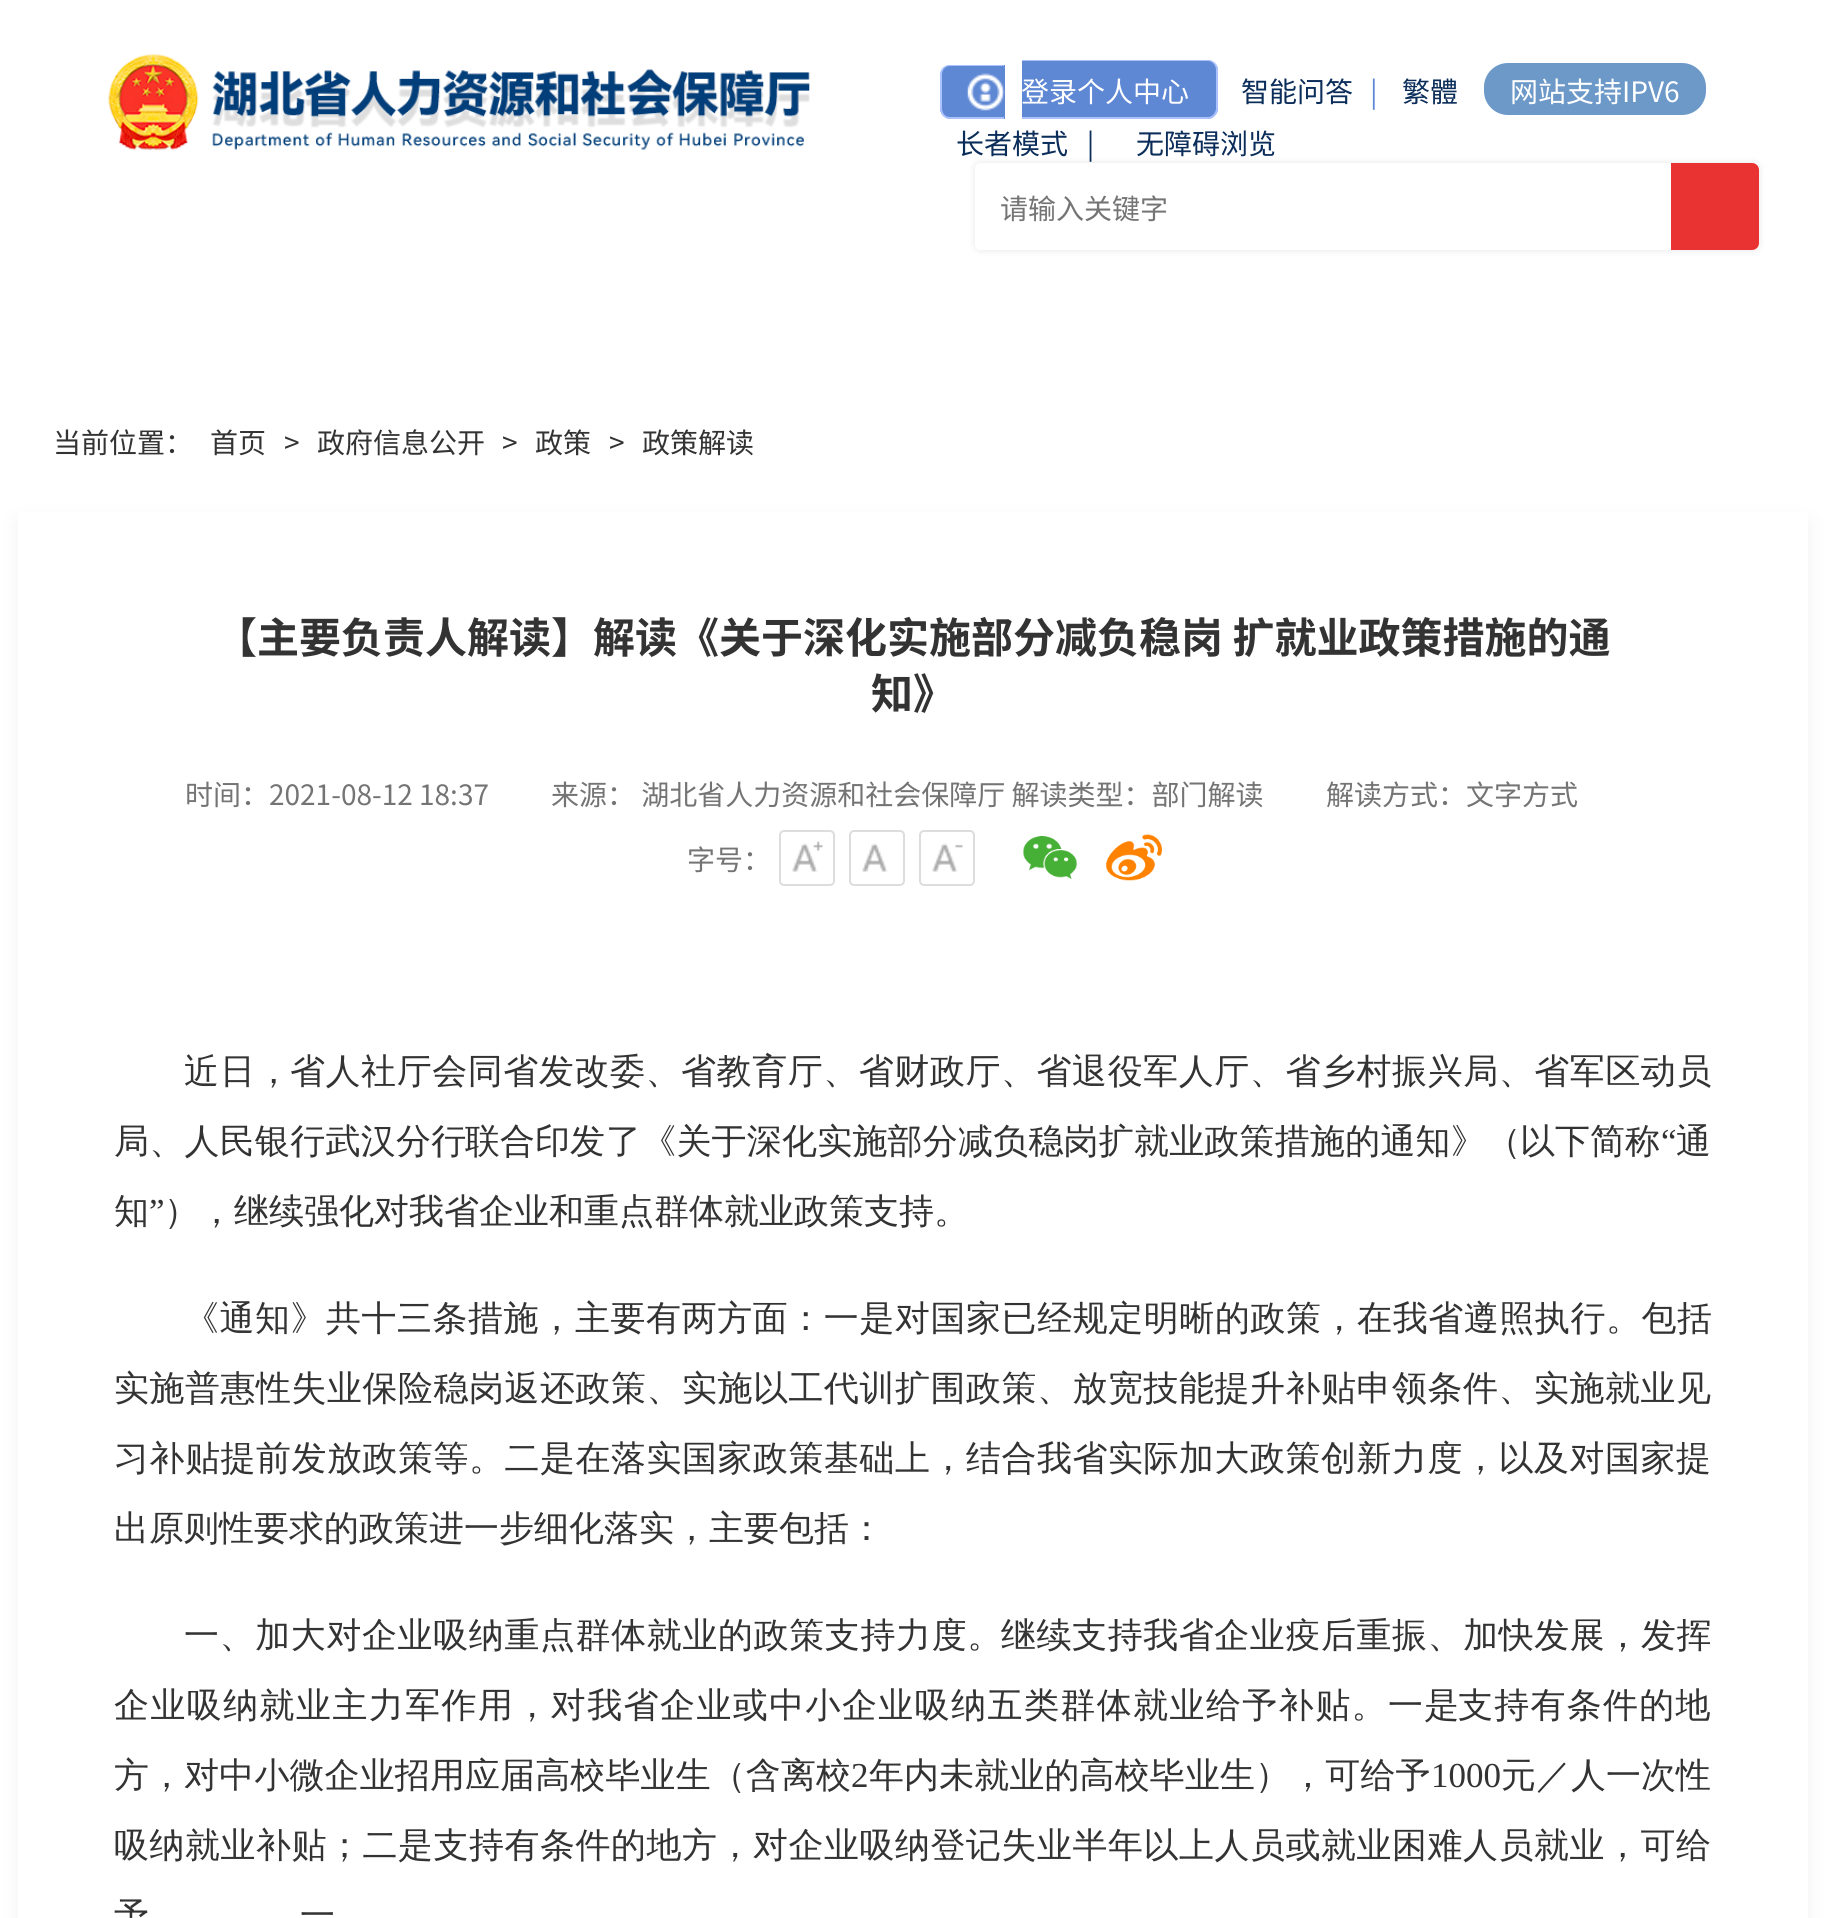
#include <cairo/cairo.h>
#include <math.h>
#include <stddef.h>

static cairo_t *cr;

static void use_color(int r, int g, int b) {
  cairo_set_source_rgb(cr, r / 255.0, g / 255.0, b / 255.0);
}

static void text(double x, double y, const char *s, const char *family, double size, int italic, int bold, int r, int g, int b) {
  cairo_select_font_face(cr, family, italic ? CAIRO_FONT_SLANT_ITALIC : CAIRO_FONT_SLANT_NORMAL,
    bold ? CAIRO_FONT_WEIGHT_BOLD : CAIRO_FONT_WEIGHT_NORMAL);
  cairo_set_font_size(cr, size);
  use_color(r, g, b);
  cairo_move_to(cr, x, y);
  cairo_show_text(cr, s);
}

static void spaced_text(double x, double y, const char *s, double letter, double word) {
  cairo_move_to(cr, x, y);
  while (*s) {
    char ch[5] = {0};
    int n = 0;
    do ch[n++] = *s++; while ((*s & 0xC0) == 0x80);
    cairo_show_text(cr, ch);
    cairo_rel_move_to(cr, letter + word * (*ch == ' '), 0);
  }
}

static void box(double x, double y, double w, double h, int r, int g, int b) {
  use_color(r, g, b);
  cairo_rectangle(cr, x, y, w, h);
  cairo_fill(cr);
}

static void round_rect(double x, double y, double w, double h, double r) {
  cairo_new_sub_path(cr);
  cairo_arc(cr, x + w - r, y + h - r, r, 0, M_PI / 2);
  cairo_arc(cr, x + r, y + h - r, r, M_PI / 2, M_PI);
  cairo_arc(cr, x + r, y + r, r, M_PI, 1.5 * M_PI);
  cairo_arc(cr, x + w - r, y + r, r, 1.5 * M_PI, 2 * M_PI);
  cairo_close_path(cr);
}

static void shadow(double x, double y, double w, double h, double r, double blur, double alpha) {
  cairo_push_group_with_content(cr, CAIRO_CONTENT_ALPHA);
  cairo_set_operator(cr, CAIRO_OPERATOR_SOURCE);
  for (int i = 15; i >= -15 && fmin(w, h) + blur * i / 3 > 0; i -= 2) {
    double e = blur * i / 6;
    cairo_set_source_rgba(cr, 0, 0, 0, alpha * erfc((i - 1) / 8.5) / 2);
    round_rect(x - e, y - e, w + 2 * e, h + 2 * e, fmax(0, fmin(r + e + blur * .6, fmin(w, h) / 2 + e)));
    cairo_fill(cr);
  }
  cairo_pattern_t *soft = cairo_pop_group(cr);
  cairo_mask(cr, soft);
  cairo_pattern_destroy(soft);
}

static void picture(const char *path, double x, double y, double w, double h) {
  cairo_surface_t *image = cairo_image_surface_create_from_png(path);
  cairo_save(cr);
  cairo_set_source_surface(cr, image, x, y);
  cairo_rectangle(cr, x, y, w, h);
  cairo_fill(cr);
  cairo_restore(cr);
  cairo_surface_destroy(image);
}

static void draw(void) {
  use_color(255, 255, 255);
  cairo_paint(cr);
  picture("img_01.png", 108, 54, 702, 97);
  use_color(94, 135, 212);
  cairo_new_path(cr);
  cairo_move_to(cr, 951, 65);
  cairo_line_to(cr, 1005, 65);
  cairo_line_to(cr, 1005, 119);
  cairo_line_to(cr, 951, 119);
  cairo_curve_to(cr, 945, 119, 940, 114, 940, 108);
  cairo_line_to(cr, 940, 76);
  cairo_curve_to(cr, 940, 70, 945, 65, 951, 65);
  cairo_close_path(cr);
  cairo_fill(cr);
  use_color(170, 194, 255);
  cairo_set_fill_rule(cr, CAIRO_FILL_RULE_EVEN_ODD);
  cairo_new_path(cr);
  cairo_move_to(cr, 950, 65);
  cairo_line_to(cr, 1004, 65);
  cairo_line_to(cr, 1004, 119);
  cairo_line_to(cr, 950, 119);
  cairo_curve_to(cr, 944, 119, 940, 114, 940, 108);
  cairo_line_to(cr, 940, 75);
  cairo_curve_to(cr, 940, 69, 944, 65, 950, 65);
  cairo_close_path(cr);
  cairo_move_to(cr, 950, 66);
  cairo_line_to(cr, 1004, 66);
  cairo_line_to(cr, 1004, 117);
  cairo_line_to(cr, 950, 117);
  cairo_curve_to(cr, 945, 117, 942, 113, 942, 108);
  cairo_line_to(cr, 942, 75);
  cairo_curve_to(cr, 942, 70, 945, 66, 950, 66);
  cairo_close_path(cr);
  cairo_fill(cr);
  picture("img_02.png", 967, 73, 38, 38);
  use_color(94, 135, 212);
  cairo_new_path(cr);
  cairo_move_to(cr, 1022, 60);
  cairo_line_to(cr, 1207, 60);
  cairo_curve_to(cr, 1213, 60, 1218, 65, 1218, 71);
  cairo_line_to(cr, 1218, 108);
  cairo_curve_to(cr, 1218, 114, 1213, 119, 1207, 119);
  cairo_line_to(cr, 1022, 119);
  cairo_close_path(cr);
  cairo_fill(cr);
  use_color(170, 194, 255);
  cairo_new_path(cr);
  cairo_move_to(cr, 1022, 60);
  cairo_line_to(cr, 1208, 60);
  cairo_curve_to(cr, 1213, 60, 1218, 64, 1218, 70);
  cairo_line_to(cr, 1218, 108);
  cairo_curve_to(cr, 1218, 114, 1213, 119, 1208, 119);
  cairo_line_to(cr, 1022, 119);
  cairo_close_path(cr);
  cairo_move_to(cr, 1022, 61);
  cairo_line_to(cr, 1208, 61);
  cairo_curve_to(cr, 1212, 61, 1216, 65, 1216, 70);
  cairo_line_to(cr, 1216, 108);
  cairo_curve_to(cr, 1216, 113, 1212, 117, 1208, 117);
  cairo_line_to(cr, 1022, 117);
  cairo_close_path(cr);
  cairo_fill(cr);
  use_color(109, 153, 201);
  round_rect(1483, 62, 224, 54, 25);
  cairo_fill_preserve(cr);
  use_color(255, 255, 255);
  cairo_stroke(cr);
  use_color(0, 0, 0);
  shadow(975, 163, 784, 87, 5, 3.5, 0.1);
  use_color(255, 255, 255);
  round_rect(975, 163, 784, 87, 5);
  cairo_fill(cr);
  use_color(233, 51, 51);
  cairo_new_path(cr);
  cairo_move_to(cr, 1671, 163);
  cairo_line_to(cr, 1752, 163);
  cairo_curve_to(cr, 1756, 163, 1759, 166, 1759, 170);
  cairo_line_to(cr, 1759, 243);
  cairo_curve_to(cr, 1759, 247, 1756, 250, 1752, 250);
  cairo_line_to(cr, 1671, 250);
  cairo_close_path(cr);
  cairo_fill(cr);
  use_color(0, 0, 0);
  shadow(18, 522, 1790, 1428, 0, 10.5, 0.06);
  box(18, 512, 1790, 1406, 255, 255, 255);
  round_rect(780, 831, 54, 54, 4);
  use_color(221, 221, 221);
  cairo_stroke(cr);
  picture("img_03.png", 792, 841, 31, 31);
  round_rect(850, 831, 54, 54, 4);
  cairo_stroke(cr);
  picture("img_04.png", 862, 843, 26, 29);
  round_rect(920, 831, 54, 54, 4);
  cairo_stroke(cr);
  picture("img_05.png", 932, 843, 31, 29);
  picture("img_06.png", 1022, 836, 56, 43);
  picture("img_07.png", 1106, 834, 56, 47);
  text(1021, 102, "登录个人中心", "Noto Sans CJK SC", 28, 0, 0, 255, 255, 255);
  text(1241, 102, "智能问答", "Noto Sans CJK SC", 28, 0, 0, 11, 45, 90);
  text(1370, 102, "|", "Noto Sans CJK SC", 28, 0, 0, 94, 135, 212);
  text(1402, 102, "繁體", "Noto Sans CJK SC", 28, 0, 0, 11, 45, 90);
  text(1510, 102, "网站支持IPV6", "Noto Sans CJK SC", 28, 0, 0, 255, 255, 255);
  text(956, 154, "长者模式   |", "Noto Sans CJK SC", 28, 0, 0, 11, 45, 90);
  text(1136, 154, "无障碍浏览", "Noto Sans CJK SC", 28, 0, 0, 11, 45, 90);
  text(1000, 219, "请输入关键字", "Noto Sans CJK SC", 28, 0, 0, 116, 116, 116);
  text(53, 453, "当前位置：", "Noto Sans CJK SC", 28, 0, 0, 51, 51, 51);
  text(210, 453, "首页", "Noto Sans CJK SC", 28, 0, 0, 51, 51, 51);
  text(284, 453, ">", "Noto Sans CJK SC", 28, 0, 0, 51, 51, 51);
  text(317, 453, "政府信息公开", "Noto Sans CJK SC", 28, 0, 0, 51, 51, 51);
  text(502, 453, ">", "Noto Sans CJK SC", 28, 0, 0, 51, 51, 51);
  text(535, 453, "政策", "Noto Sans CJK SC", 28, 0, 0, 51, 51, 51);
  text(609, 453, ">", "Noto Sans CJK SC", 28, 0, 0, 51, 51, 51);
  text(642, 453, "政策解读", "Noto Sans CJK SC", 28, 0, 0, 51, 51, 51);
  text(215, 653, "【主要负责人解读】解读《关于深化实施部分减负稳岗 扩就业政策措施的通", "Noto Sans CJK SC", 42, 0, 1, 51, 51, 51);
  text(871, 709, "知》", "Noto Sans CJK SC", 42, 0, 1, 51, 51, 51);
  text(185, 805, "时间：2021-08-12 18:37", "Noto Sans CJK SC", 28, 0, 0, 116, 116, 116);
  text(551, 805, "来源： 湖北省人力资源和社会保障厅 解读类型：部门解读", "Noto Sans CJK SC", 28, 0, 0, 116, 116, 116);
  text(1326, 805, "解读方式：文字方式", "Noto Sans CJK SC", 28, 0, 0, 116, 116, 116);
  text(687, 870, "字号：", "Noto Sans CJK SC", 28, 0, 0, 116, 116, 116);
  cairo_select_font_face(cr, "WenQuanYi Zen Hei Medium", CAIRO_FONT_SLANT_NORMAL, CAIRO_FONT_WEIGHT_NORMAL);
  cairo_set_font_size(cr, 35);
  use_color(51, 51, 51);
  spaced_text(184, 1083, "近日，", 1, 0);
  spaced_text(290, 1083, "省人社厅会同省发改委、省教育厅、省财政厅、省退役军人厅、省乡村振兴局、省军区动员", 0.55, 0);
  spaced_text(114, 1153, "局、人民银行武汉分行", 0.25, 0);
  text(465, 1153, "联合印发", "WenQuanYi Zen Hei Medium", 35, 0, 0, 51, 51, 51);
  spaced_text(606, 1153, "了《关于深化实施部分减负稳岗扩就业政策措施的通知》（", 0.2, 0);
  text(1520, 1153, "以下简称", "WenQuanYi Zen Hei Medium", 35, 0, 0, 51, 51, 51);
  text(1661, 1153, "“", "Liberation Serif", 35, 0, 0, 51, 51, 51);
  text(1676, 1153, "通", "WenQuanYi Zen Hei Medium", 35, 0, 0, 51, 51, 51);
  text(114, 1223, "知", "WenQuanYi Zen Hei Medium", 35, 0, 0, 51, 51, 51);
  text(149, 1223, "”", "Liberation Serif", 35, 0, 0, 51, 51, 51);
  text(164, 1223, "），继续强化对我省企业和重点群体就业政策支持。", "WenQuanYi Zen Hei Medium", 35, 0, 0, 51, 51, 51);
  spaced_text(184, 1330, "《通知》共十三条措施", 0.5, 0);
  text(539, 1330, "，", "WenQuanYi Zen Hei Medium", 35, 0, 0, 51, 51, 51);
  spaced_text(575, 1330, "主要有两方面：一是对国家已经规定明晰的政策，在我省遵照执行。包括", 0.55, 0);
  spaced_text(114, 1400, "实施普惠性失业保险稳岗返还政策、实施以工代训扩围政策、放宽技能提升补贴申领条件、实施就业见", 0.5, 0);
  spaced_text(114, 1470, "习补贴提前发放政策等。二是在落实国家政策基础上，结合我省实际加大政策创新力度，以及对国家提", 0.5, 0);
  text(114, 1540, "出原则性要求的政策进一步细化落实，主要包括：", "WenQuanYi Zen Hei Medium", 35, 0, 0, 51, 51, 51);
  spaced_text(184, 1647, "一、加大对企业吸纳重点群体就业的政策支持力度。", 0.6, 0);
  spaced_text(1001, 1647, "继续支持我省企业疫后重振、加快发展，发挥", 0.55, 0);
  spaced_text(114, 1717, "企业吸纳就业主力军作用，对我省企业或中小企业吸纳五类群体就业给予补贴。一是", 1.4, 0);
  spaced_text(1458, 1717, "支持有条件的地", 1.25, 0);
  spaced_text(114, 1787, "方，对中小微企业招用应届高校毕业生（含离校", 0.1, 0);
  text(851, 1787, "2", "Liberation Serif", 35, 0, 0, 51, 51, 51);
  cairo_select_font_face(cr, "WenQuanYi Zen Hei Medium", CAIRO_FONT_SLANT_NORMAL, CAIRO_FONT_WEIGHT_NORMAL);
  spaced_text(869, 1787, "年内未就业的高校毕业生），可给予", 0.1, 0);
  text(1431, 1787, "1000", "Liberation Serif", 35, 0, 0, 51, 51, 51);
  text(1501, 1787, "元／人一次性", "WenQuanYi Zen Hei Medium", 35, 0, 0, 51, 51, 51);
  spaced_text(114, 1857, "吸纳就业补贴；二是支持有条件的地方，对企业吸纳登记失业半年以上人员或就业困难人员就业，可给", 0.5, 0);
  text(114, 1927, "予", "WenQuanYi Zen Hei Medium", 35, 0, 0, 51, 51, 51);
  text(300, 1927, "一", "WenQuanYi Zen Hei Medium", 35, 0, 0, 51, 51, 51);
}

int main(void) {
  cairo_surface_t *surface = cairo_image_surface_create(CAIRO_FORMAT_RGB24, 1825, 1918);
  cr = cairo_create(surface);
  cairo_font_options_t *options = cairo_font_options_create();
  cairo_font_options_set_hint_metrics(options, CAIRO_HINT_METRICS_OFF);
  cairo_font_options_set_hint_style(options, CAIRO_HINT_STYLE_NONE);
  cairo_set_font_options(cr, options);
  cairo_set_miter_limit(cr, 4);
  draw();
  cairo_surface_write_to_png(surface, "out.png");
  cairo_font_options_destroy(options);
  cairo_destroy(cr);
  cairo_surface_destroy(surface);
  return 0;
}
